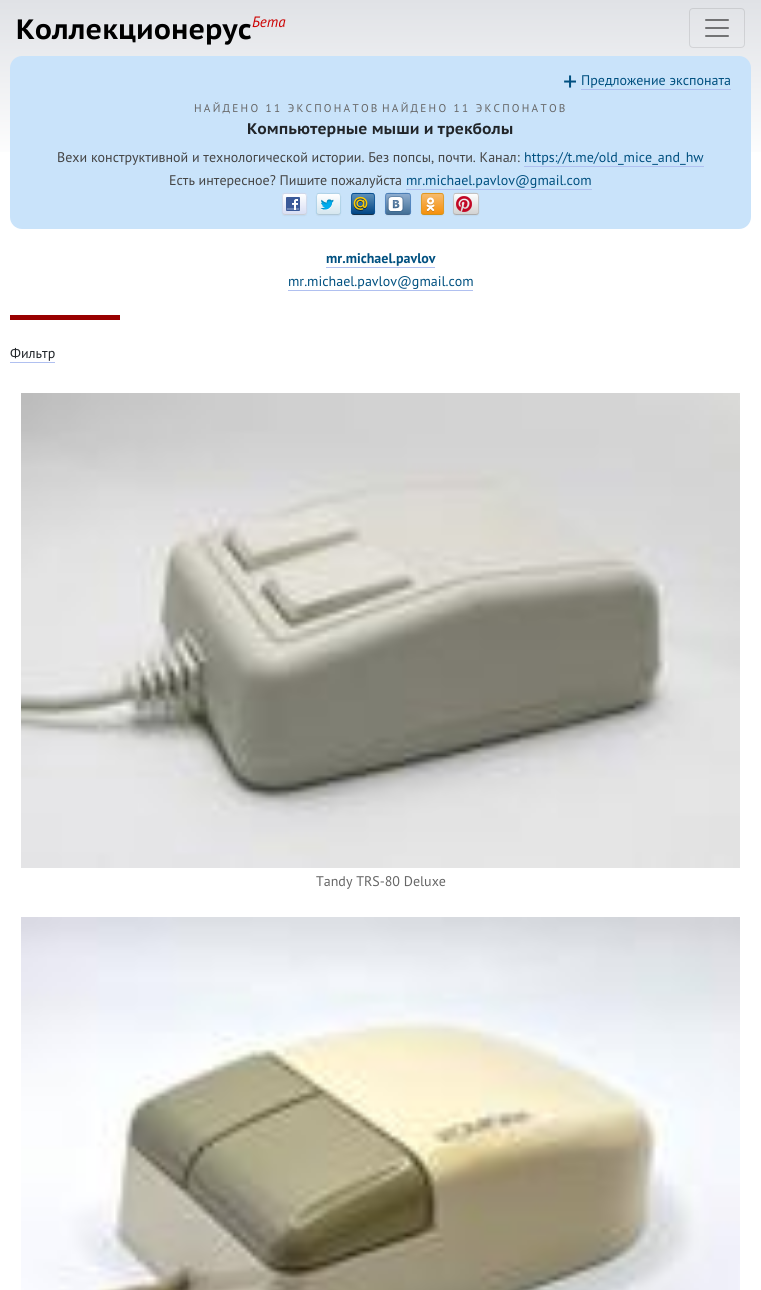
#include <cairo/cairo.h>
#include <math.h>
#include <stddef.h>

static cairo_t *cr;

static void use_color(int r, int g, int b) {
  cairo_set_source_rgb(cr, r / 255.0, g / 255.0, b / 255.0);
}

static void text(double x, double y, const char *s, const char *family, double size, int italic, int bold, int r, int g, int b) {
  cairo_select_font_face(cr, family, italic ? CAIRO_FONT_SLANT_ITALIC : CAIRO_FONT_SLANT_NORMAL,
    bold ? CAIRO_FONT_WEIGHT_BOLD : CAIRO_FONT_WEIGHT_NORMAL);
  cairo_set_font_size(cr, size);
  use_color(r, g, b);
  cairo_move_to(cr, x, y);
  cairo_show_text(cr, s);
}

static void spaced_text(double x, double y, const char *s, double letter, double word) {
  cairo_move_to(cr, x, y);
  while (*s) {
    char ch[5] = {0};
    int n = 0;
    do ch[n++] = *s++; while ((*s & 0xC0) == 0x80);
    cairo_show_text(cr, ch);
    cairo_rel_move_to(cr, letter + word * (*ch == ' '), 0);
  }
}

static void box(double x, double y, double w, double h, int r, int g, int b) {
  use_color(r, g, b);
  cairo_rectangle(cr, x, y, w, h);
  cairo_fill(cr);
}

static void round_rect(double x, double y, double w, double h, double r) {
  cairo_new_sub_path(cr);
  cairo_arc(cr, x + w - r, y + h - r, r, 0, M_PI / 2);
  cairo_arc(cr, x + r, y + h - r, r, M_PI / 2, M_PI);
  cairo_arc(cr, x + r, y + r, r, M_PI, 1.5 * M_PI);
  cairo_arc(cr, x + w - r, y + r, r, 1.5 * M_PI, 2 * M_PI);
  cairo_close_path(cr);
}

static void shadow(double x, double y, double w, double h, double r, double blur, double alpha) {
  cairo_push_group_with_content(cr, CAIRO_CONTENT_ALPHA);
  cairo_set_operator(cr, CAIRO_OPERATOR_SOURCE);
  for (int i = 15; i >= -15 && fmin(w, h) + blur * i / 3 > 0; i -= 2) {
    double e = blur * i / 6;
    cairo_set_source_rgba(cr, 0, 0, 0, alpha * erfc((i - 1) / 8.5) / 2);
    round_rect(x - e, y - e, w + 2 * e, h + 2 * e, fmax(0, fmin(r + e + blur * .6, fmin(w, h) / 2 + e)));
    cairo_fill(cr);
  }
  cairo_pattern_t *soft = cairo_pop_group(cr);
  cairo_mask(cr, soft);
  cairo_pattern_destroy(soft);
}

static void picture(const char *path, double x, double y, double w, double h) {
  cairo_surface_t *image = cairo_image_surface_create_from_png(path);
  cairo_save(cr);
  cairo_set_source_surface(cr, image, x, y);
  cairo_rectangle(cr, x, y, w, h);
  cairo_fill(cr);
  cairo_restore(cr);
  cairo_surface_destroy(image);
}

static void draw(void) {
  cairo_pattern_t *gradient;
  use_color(255, 255, 255);
  cairo_paint(cr);
  gradient = cairo_pattern_create_linear(381, 0, 381, 165);
  cairo_pattern_add_color_stop_rgba(gradient, 0, 0.878, 0.886, 0.902, 1);
  cairo_pattern_add_color_stop_rgba(gradient, 1, 1, 1, 1, 1);
  cairo_set_source(cr, gradient);
  cairo_pattern_destroy(gradient);
  cairo_rectangle(cr, 0, 0, 761, 152);
  cairo_fill(cr);
  round_rect(689.5, 8.5, 55, 39, 3.5);
  cairo_set_source_rgba(cr, 0, 0, 0, 0.1);
  cairo_set_line_width(cr, 1);
  cairo_stroke(cr);
  picture("img_01.png", 705, 19, 24, 18);
  use_color(201, 227, 250);
  round_rect(10, 56, 741, 173, 12);
  cairo_fill(cr);
  box(581, 89, 150, 1, 176, 192, 240);
  box(524, 166, 180, 1, 176, 192, 240);
  box(406, 189, 186, 1, 176, 192, 240);
  use_color(0, 0, 0);
  shadow(282, 194, 25, 22, 3, 0.5, 0.05);
  cairo_save(cr);
  round_rect(282, 193, 25, 22, 3);
  cairo_clip(cr);
  gradient = cairo_pattern_create_linear(295, 174, 295, 194);
  cairo_pattern_add_color_stop_rgba(gradient, 0, 1, 1, 1, 1);
  cairo_pattern_add_color_stop_rgba(gradient, 1, 0.847, 0.871, 0.957, 1);
  cairo_set_source(cr, gradient);
  cairo_pattern_destroy(gradient);
  cairo_rectangle(cr, 282, 193, 25, 1);
  cairo_fill(cr);
  gradient = cairo_pattern_create_linear(295, 194, 295, 214);
  cairo_pattern_add_color_stop_rgba(gradient, 0, 1, 1, 1, 1);
  cairo_pattern_add_color_stop_rgba(gradient, 1, 0.847, 0.871, 0.957, 1);
  cairo_set_source(cr, gradient);
  cairo_pattern_destroy(gradient);
  cairo_rectangle(cr, 282, 194, 25, 20);
  cairo_fill(cr);
  gradient = cairo_pattern_create_linear(295, 214, 295, 234);
  cairo_pattern_add_color_stop_rgba(gradient, 0, 1, 1, 1, 1);
  cairo_pattern_add_color_stop_rgba(gradient, 1, 0.847, 0.871, 0.957, 1);
  cairo_set_source(cr, gradient);
  cairo_pattern_destroy(gradient);
  cairo_rectangle(cr, 282, 214, 25, 1);
  cairo_fill(cr);
  cairo_restore(cr);
  cairo_new_path(cr);
  cairo_move_to(cr, 306, 214);
  cairo_curve_to(cr, 305.5, 214, 304.5, 214.5, 304, 214.5);
  cairo_line_to(cr, 285, 214.5);
  cairo_curve_to(cr, 284.5, 214.5, 283.5, 214, 283, 214);
  cairo_set_source_rgba(cr, 0.741, 0.761, 0.796, 0.8);
  cairo_stroke(cr);
  cairo_new_path(cr);
  cairo_move_to(cr, 283, 214);
  cairo_curve_to(cr, 282, 212.5, 282.5, 210.5, 282.5, 209.5);
  cairo_line_to(cr, 282.5, 204);
  cairo_curve_to(cr, 282.5, 191, 281, 193.5, 294.5, 193.5);
  cairo_curve_to(cr, 308, 193.5, 306.5, 191, 306.5, 204);
  cairo_line_to(cr, 306.5, 209.5);
  cairo_curve_to(cr, 306.5, 210.5, 307, 212.5, 306, 214);
  cairo_set_source_rgba(cr, 0.792, 0.831, 0.906, 0.8);
  cairo_stroke(cr);
  picture("img_02.png", 286, 197, 14, 14);
  use_color(0, 0, 0);
  shadow(316, 194, 25, 22, 3, 0.5, 0.05);
  cairo_save(cr);
  round_rect(316, 193, 25, 22, 3);
  cairo_clip(cr);
  gradient = cairo_pattern_create_linear(329, 174, 329, 194);
  cairo_pattern_add_color_stop_rgba(gradient, 0, 1, 1, 1, 1);
  cairo_pattern_add_color_stop_rgba(gradient, 1, 0.835, 0.902, 0.937, 1);
  cairo_set_source(cr, gradient);
  cairo_pattern_destroy(gradient);
  cairo_rectangle(cr, 316, 193, 25, 1);
  cairo_fill(cr);
  gradient = cairo_pattern_create_linear(329, 194, 329, 214);
  cairo_pattern_add_color_stop_rgba(gradient, 0, 1, 1, 1, 1);
  cairo_pattern_add_color_stop_rgba(gradient, 1, 0.835, 0.902, 0.937, 1);
  cairo_set_source(cr, gradient);
  cairo_pattern_destroy(gradient);
  cairo_rectangle(cr, 316, 194, 25, 20);
  cairo_fill(cr);
  gradient = cairo_pattern_create_linear(329, 214, 329, 234);
  cairo_pattern_add_color_stop_rgba(gradient, 0, 1, 1, 1, 1);
  cairo_pattern_add_color_stop_rgba(gradient, 1, 0.835, 0.902, 0.937, 1);
  cairo_set_source(cr, gradient);
  cairo_pattern_destroy(gradient);
  cairo_rectangle(cr, 316, 214, 25, 1);
  cairo_fill(cr);
  cairo_restore(cr);
  cairo_new_path(cr);
  cairo_move_to(cr, 340, 214);
  cairo_curve_to(cr, 339.5, 214, 338.5, 214.5, 338, 214.5);
  cairo_line_to(cr, 319, 214.5);
  cairo_curve_to(cr, 318.5, 214.5, 317.5, 214, 317, 214);
  cairo_set_source_rgba(cr, 0.62, 0.729, 0.8, 0.8);
  cairo_stroke(cr);
  cairo_new_path(cr);
  cairo_move_to(cr, 317, 214);
  cairo_curve_to(cr, 316, 212.5, 316.5, 210.5, 316.5, 209.5);
  cairo_line_to(cr, 316.5, 204);
  cairo_curve_to(cr, 316.5, 191, 315, 193.5, 328.5, 193.5);
  cairo_curve_to(cr, 342, 193.5, 340.5, 191, 340.5, 204);
  cairo_line_to(cr, 340.5, 209.5);
  cairo_curve_to(cr, 340.5, 210.5, 341, 212.5, 340, 214);
  cairo_set_source_rgba(cr, 0.643, 0.8, 0.898, 0.8);
  cairo_stroke(cr);
  picture("img_03.png", 320, 199, 14, 11);
  use_color(0, 0, 0);
  shadow(351, 194, 24, 22, 3, 0.5, 0.05);
  cairo_save(cr);
  round_rect(351, 193, 24, 22, 3);
  cairo_clip(cr);
  gradient = cairo_pattern_create_linear(363, 174, 363, 194);
  cairo_pattern_add_color_stop_rgba(gradient, 0, 0.365, 0.565, 0.729, 1);
  cairo_pattern_add_color_stop_rgba(gradient, 1, 0, 0.271, 0.518, 1);
  cairo_set_source(cr, gradient);
  cairo_pattern_destroy(gradient);
  cairo_rectangle(cr, 351, 193, 24, 1);
  cairo_fill(cr);
  gradient = cairo_pattern_create_linear(363, 194, 363, 214);
  cairo_pattern_add_color_stop_rgba(gradient, 0, 0.365, 0.565, 0.729, 1);
  cairo_pattern_add_color_stop_rgba(gradient, 1, 0, 0.271, 0.518, 1);
  cairo_set_source(cr, gradient);
  cairo_pattern_destroy(gradient);
  cairo_rectangle(cr, 351, 194, 24, 20);
  cairo_fill(cr);
  gradient = cairo_pattern_create_linear(363, 214, 363, 234);
  cairo_pattern_add_color_stop_rgba(gradient, 0, 0.365, 0.565, 0.729, 1);
  cairo_pattern_add_color_stop_rgba(gradient, 1, 0, 0.271, 0.518, 1);
  cairo_set_source(cr, gradient);
  cairo_pattern_destroy(gradient);
  cairo_rectangle(cr, 351, 214, 24, 1);
  cairo_fill(cr);
  cairo_restore(cr);
  cairo_new_path(cr);
  cairo_move_to(cr, 374, 214);
  cairo_curve_to(cr, 373.5, 214, 372.5, 214.5, 372, 214.5);
  cairo_line_to(cr, 354, 214.5);
  cairo_curve_to(cr, 353.5, 214.5, 352.5, 214, 352, 214);
  cairo_set_source_rgba(cr, 0.012, 0.106, 0.188, 0.8);
  cairo_stroke(cr);
  cairo_new_path(cr);
  cairo_move_to(cr, 352, 214);
  cairo_curve_to(cr, 351, 212.5, 351.5, 210.5, 351.5, 209.5);
  cairo_line_to(cr, 351.5, 204);
  cairo_curve_to(cr, 351.5, 191.5, 350, 193.5, 363, 193.5);
  cairo_curve_to(cr, 376, 193.5, 374.5, 191.5, 374.5, 204);
  cairo_line_to(cr, 374.5, 209.5);
  cairo_curve_to(cr, 374.5, 210.5, 375, 212.5, 374, 214);
  cairo_set_source_rgba(cr, 0.043, 0.329, 0.6, 0.8);
  cairo_stroke(cr);
  picture("img_04.png", 353, 196, 15, 15);
  use_color(0, 0, 0);
  shadow(385, 194, 26, 22, 3, 0.5, 0.05);
  cairo_save(cr);
  round_rect(385, 193, 26, 22, 3);
  cairo_clip(cr);
  gradient = cairo_pattern_create_linear(398, 174, 398, 194);
  cairo_pattern_add_color_stop_rgba(gradient, 0, 0.561, 0.682, 0.812, 1);
  cairo_pattern_add_color_stop_rgba(gradient, 1, 0.263, 0.435, 0.588, 1);
  cairo_set_source(cr, gradient);
  cairo_pattern_destroy(gradient);
  cairo_rectangle(cr, 385, 193, 26, 1);
  cairo_fill(cr);
  gradient = cairo_pattern_create_linear(398, 194, 398, 214);
  cairo_pattern_add_color_stop_rgba(gradient, 0, 0.561, 0.682, 0.812, 1);
  cairo_pattern_add_color_stop_rgba(gradient, 1, 0.263, 0.435, 0.588, 1);
  cairo_set_source(cr, gradient);
  cairo_pattern_destroy(gradient);
  cairo_rectangle(cr, 385, 194, 26, 20);
  cairo_fill(cr);
  gradient = cairo_pattern_create_linear(398, 214, 398, 234);
  cairo_pattern_add_color_stop_rgba(gradient, 0, 0.561, 0.682, 0.812, 1);
  cairo_pattern_add_color_stop_rgba(gradient, 1, 0.263, 0.435, 0.588, 1);
  cairo_set_source(cr, gradient);
  cairo_pattern_destroy(gradient);
  cairo_rectangle(cr, 385, 214, 26, 1);
  cairo_fill(cr);
  cairo_restore(cr);
  cairo_new_path(cr);
  cairo_move_to(cr, 410, 214);
  cairo_curve_to(cr, 409.5, 214, 408.5, 214.5, 408, 214.5);
  cairo_line_to(cr, 388, 214.5);
  cairo_curve_to(cr, 387.5, 214.5, 386.5, 214, 386, 214);
  cairo_set_source_rgba(cr, 0.204, 0.345, 0.498, 0.8);
  cairo_stroke(cr);
  cairo_new_path(cr);
  cairo_move_to(cr, 386, 214);
  cairo_curve_to(cr, 385, 212.5, 385.5, 210.5, 385.5, 209.5);
  cairo_line_to(cr, 385.5, 204);
  cairo_curve_to(cr, 385.5, 191, 384, 193.5, 398, 193.5);
  cairo_curve_to(cr, 412, 193.5, 410.5, 191, 410.5, 204);
  cairo_line_to(cr, 410.5, 209.5);
  cairo_curve_to(cr, 410.5, 210.5, 411, 212.5, 410, 214);
  cairo_set_source_rgba(cr, 0.306, 0.514, 0.757, 0.8);
  cairo_stroke(cr);
  picture("img_05.png", 387, 196, 17, 16);
  use_color(0, 0, 0);
  shadow(421, 194, 23, 22, 3, 0.5, 0.05);
  cairo_save(cr);
  round_rect(421, 193, 23, 22, 3);
  cairo_clip(cr);
  gradient = cairo_pattern_create_linear(433, 174, 433, 194);
  cairo_pattern_add_color_stop_rgba(gradient, 0, 0.965, 0.733, 0.427, 1);
  cairo_pattern_add_color_stop_rgba(gradient, 1, 0.965, 0.565, 0.043, 1);
  cairo_set_source(cr, gradient);
  cairo_pattern_destroy(gradient);
  cairo_rectangle(cr, 421, 193, 23, 1);
  cairo_fill(cr);
  gradient = cairo_pattern_create_linear(433, 194, 433, 214);
  cairo_pattern_add_color_stop_rgba(gradient, 0, 0.965, 0.733, 0.427, 1);
  cairo_pattern_add_color_stop_rgba(gradient, 1, 0.965, 0.565, 0.043, 1);
  cairo_set_source(cr, gradient);
  cairo_pattern_destroy(gradient);
  cairo_rectangle(cr, 421, 194, 23, 20);
  cairo_fill(cr);
  gradient = cairo_pattern_create_linear(433, 214, 433, 234);
  cairo_pattern_add_color_stop_rgba(gradient, 0, 0.965, 0.733, 0.427, 1);
  cairo_pattern_add_color_stop_rgba(gradient, 1, 0.965, 0.565, 0.043, 1);
  cairo_set_source(cr, gradient);
  cairo_pattern_destroy(gradient);
  cairo_rectangle(cr, 421, 214, 23, 1);
  cairo_fill(cr);
  cairo_restore(cr);
  cairo_new_path(cr);
  cairo_move_to(cr, 443, 214);
  cairo_curve_to(cr, 442.5, 214, 441.5, 214.5, 441, 214.5);
  cairo_line_to(cr, 424, 214.5);
  cairo_curve_to(cr, 423.5, 214.5, 422.5, 214, 422, 214);
  cairo_set_source_rgba(cr, 0.773, 0.537, 0.027, 0.8);
  cairo_stroke(cr);
  cairo_new_path(cr);
  cairo_move_to(cr, 422, 214);
  cairo_curve_to(cr, 421, 212.5, 421.5, 210.5, 421.5, 209.5);
  cairo_line_to(cr, 421.5, 204);
  cairo_curve_to(cr, 421.5, 191.5, 420, 193.5, 432.5, 193.5);
  cairo_curve_to(cr, 445, 193.5, 443.5, 191.5, 443.5, 204);
  cairo_line_to(cr, 443.5, 209.5);
  cairo_curve_to(cr, 443.5, 210.5, 444, 212.5, 443, 214);
  cairo_set_source_rgba(cr, 0.851, 0.604, 0.149, 0.8);
  cairo_stroke(cr);
  picture("img_06.png", 426, 197, 9, 15);
  use_color(0, 0, 0);
  shadow(453, 194, 26, 22, 3, 0.5, 0.05);
  cairo_save(cr);
  round_rect(453, 193, 26, 22, 3);
  cairo_clip(cr);
  gradient = cairo_pattern_create_linear(466, 174, 466, 194);
  cairo_pattern_add_color_stop_rgba(gradient, 0, 0.996, 0.996, 0.996, 1);
  cairo_pattern_add_color_stop_rgba(gradient, 1, 0.827, 0.827, 0.827, 1);
  cairo_set_source(cr, gradient);
  cairo_pattern_destroy(gradient);
  cairo_rectangle(cr, 453, 193, 26, 1);
  cairo_fill(cr);
  gradient = cairo_pattern_create_linear(466, 194, 466, 214);
  cairo_pattern_add_color_stop_rgba(gradient, 0, 0.996, 0.996, 0.996, 1);
  cairo_pattern_add_color_stop_rgba(gradient, 1, 0.827, 0.827, 0.827, 1);
  cairo_set_source(cr, gradient);
  cairo_pattern_destroy(gradient);
  cairo_rectangle(cr, 453, 194, 26, 20);
  cairo_fill(cr);
  gradient = cairo_pattern_create_linear(466, 214, 466, 234);
  cairo_pattern_add_color_stop_rgba(gradient, 0, 0.996, 0.996, 0.996, 1);
  cairo_pattern_add_color_stop_rgba(gradient, 1, 0.827, 0.827, 0.827, 1);
  cairo_set_source(cr, gradient);
  cairo_pattern_destroy(gradient);
  cairo_rectangle(cr, 453, 214, 26, 1);
  cairo_fill(cr);
  cairo_restore(cr);
  cairo_new_path(cr);
  cairo_move_to(cr, 478, 214);
  cairo_curve_to(cr, 477.5, 214, 476.5, 214.5, 476, 214.5);
  cairo_line_to(cr, 456, 214.5);
  cairo_curve_to(cr, 455.5, 214.5, 454.5, 214, 454, 214);
  cairo_set_source_rgba(cr, 0.6, 0.6, 0.6, 0.8);
  cairo_stroke(cr);
  cairo_new_path(cr);
  cairo_move_to(cr, 454, 214);
  cairo_curve_to(cr, 453, 212.5, 453.5, 210.5, 453.5, 209.5);
  cairo_line_to(cr, 453.5, 204);
  cairo_curve_to(cr, 453.5, 191, 452, 193.5, 466, 193.5);
  cairo_curve_to(cr, 480, 193.5, 478.5, 191, 478.5, 204);
  cairo_line_to(cr, 478.5, 209.5);
  cairo_curve_to(cr, 478.5, 210.5, 479, 212.5, 478, 214);
  cairo_set_source_rgba(cr, 0.729, 0.729, 0.729, 0.8);
  cairo_stroke(cr);
  picture("img_07.png", 456, 196, 16, 16);
  box(326, 267, 109, 1, 176, 192, 240);
  box(288, 290, 185, 1, 176, 192, 240);
  box(10, 315, 110, 5, 153, 0, 0);
  box(10, 362, 45, 1, 176, 192, 240);
  picture("img_08.png", 21, 393, 719, 475);
  picture("img_09.png", 21, 917, 719, 373);
  text(16, 39, "Коллекционерус", "PT Sans Caption", 28, 0, 1, 0, 0, 0);
  text(252, 27, "Бета", "PT Sans", 15, 1, 0, 204, 0, 0);
  text(563, 91, "+", "PT Sans", 28, 0, 0, 0, 80, 128);
  text(581, 85, "Предложение экспоната", "PT Sans", 14, 0, 0, 0, 80, 128);
  cairo_set_font_size(cr, 11.25);
  use_color(102, 102, 102);
  spaced_text(194, 112, "НАЙДЕНО 11 ЭКСПОНАТОВ", 2.25, 0);
  spaced_text(382, 112, "НАЙДЕНО 11 ЭКСПОНАТОВ", 2.25, 0);
  text(247, 134, "Компьютерные мыши и трекболы", "PT Sans Caption", 15.4, 0, 1, 33, 37, 41);
  text(57, 162, "Вехи конструктивной и технологической истории. Без попсы, почти. Канал:", "PT Sans", 14, 0, 0, 68, 68, 68);
  text(524, 162, "https://t.me/old_mice_and_hw", "PT Sans", 14, 0, 0, 0, 80, 128);
  text(169, 185, "Есть интересное? Пишите пожалуйста", "PT Sans", 14, 0, 0, 68, 68, 68);
  text(406, 185, "mr.michael.pavlov@gmail.com", "PT Sans", 14, 0, 0, 0, 80, 128);
  text(326, 263, "mr.michael.pavlov", "PT Sans", 14, 0, 1, 0, 80, 128);
  text(288, 286, "mr.michael.pavlov@gmail.com", "PT Sans", 14, 0, 0, 0, 80, 128);
  text(10, 358, "Фильтр", "PT Sans", 14, 0, 0, 33, 37, 41);
  text(316, 886, "Tandy TRS-80 Deluxe", "PT Sans", 14, 0, 0, 102, 102, 102);
}

int main(void) {
  cairo_surface_t *surface = cairo_image_surface_create(CAIRO_FORMAT_RGB24, 761, 1290);
  cr = cairo_create(surface);
  cairo_font_options_t *options = cairo_font_options_create();
  cairo_font_options_set_hint_metrics(options, CAIRO_HINT_METRICS_OFF);
  cairo_font_options_set_hint_style(options, CAIRO_HINT_STYLE_NONE);
  cairo_set_font_options(cr, options);
  cairo_set_miter_limit(cr, 4);
  draw();
  cairo_surface_write_to_png(surface, "out.png");
  cairo_font_options_destroy(options);
  cairo_destroy(cr);
  cairo_surface_destroy(surface);
  return 0;
}
